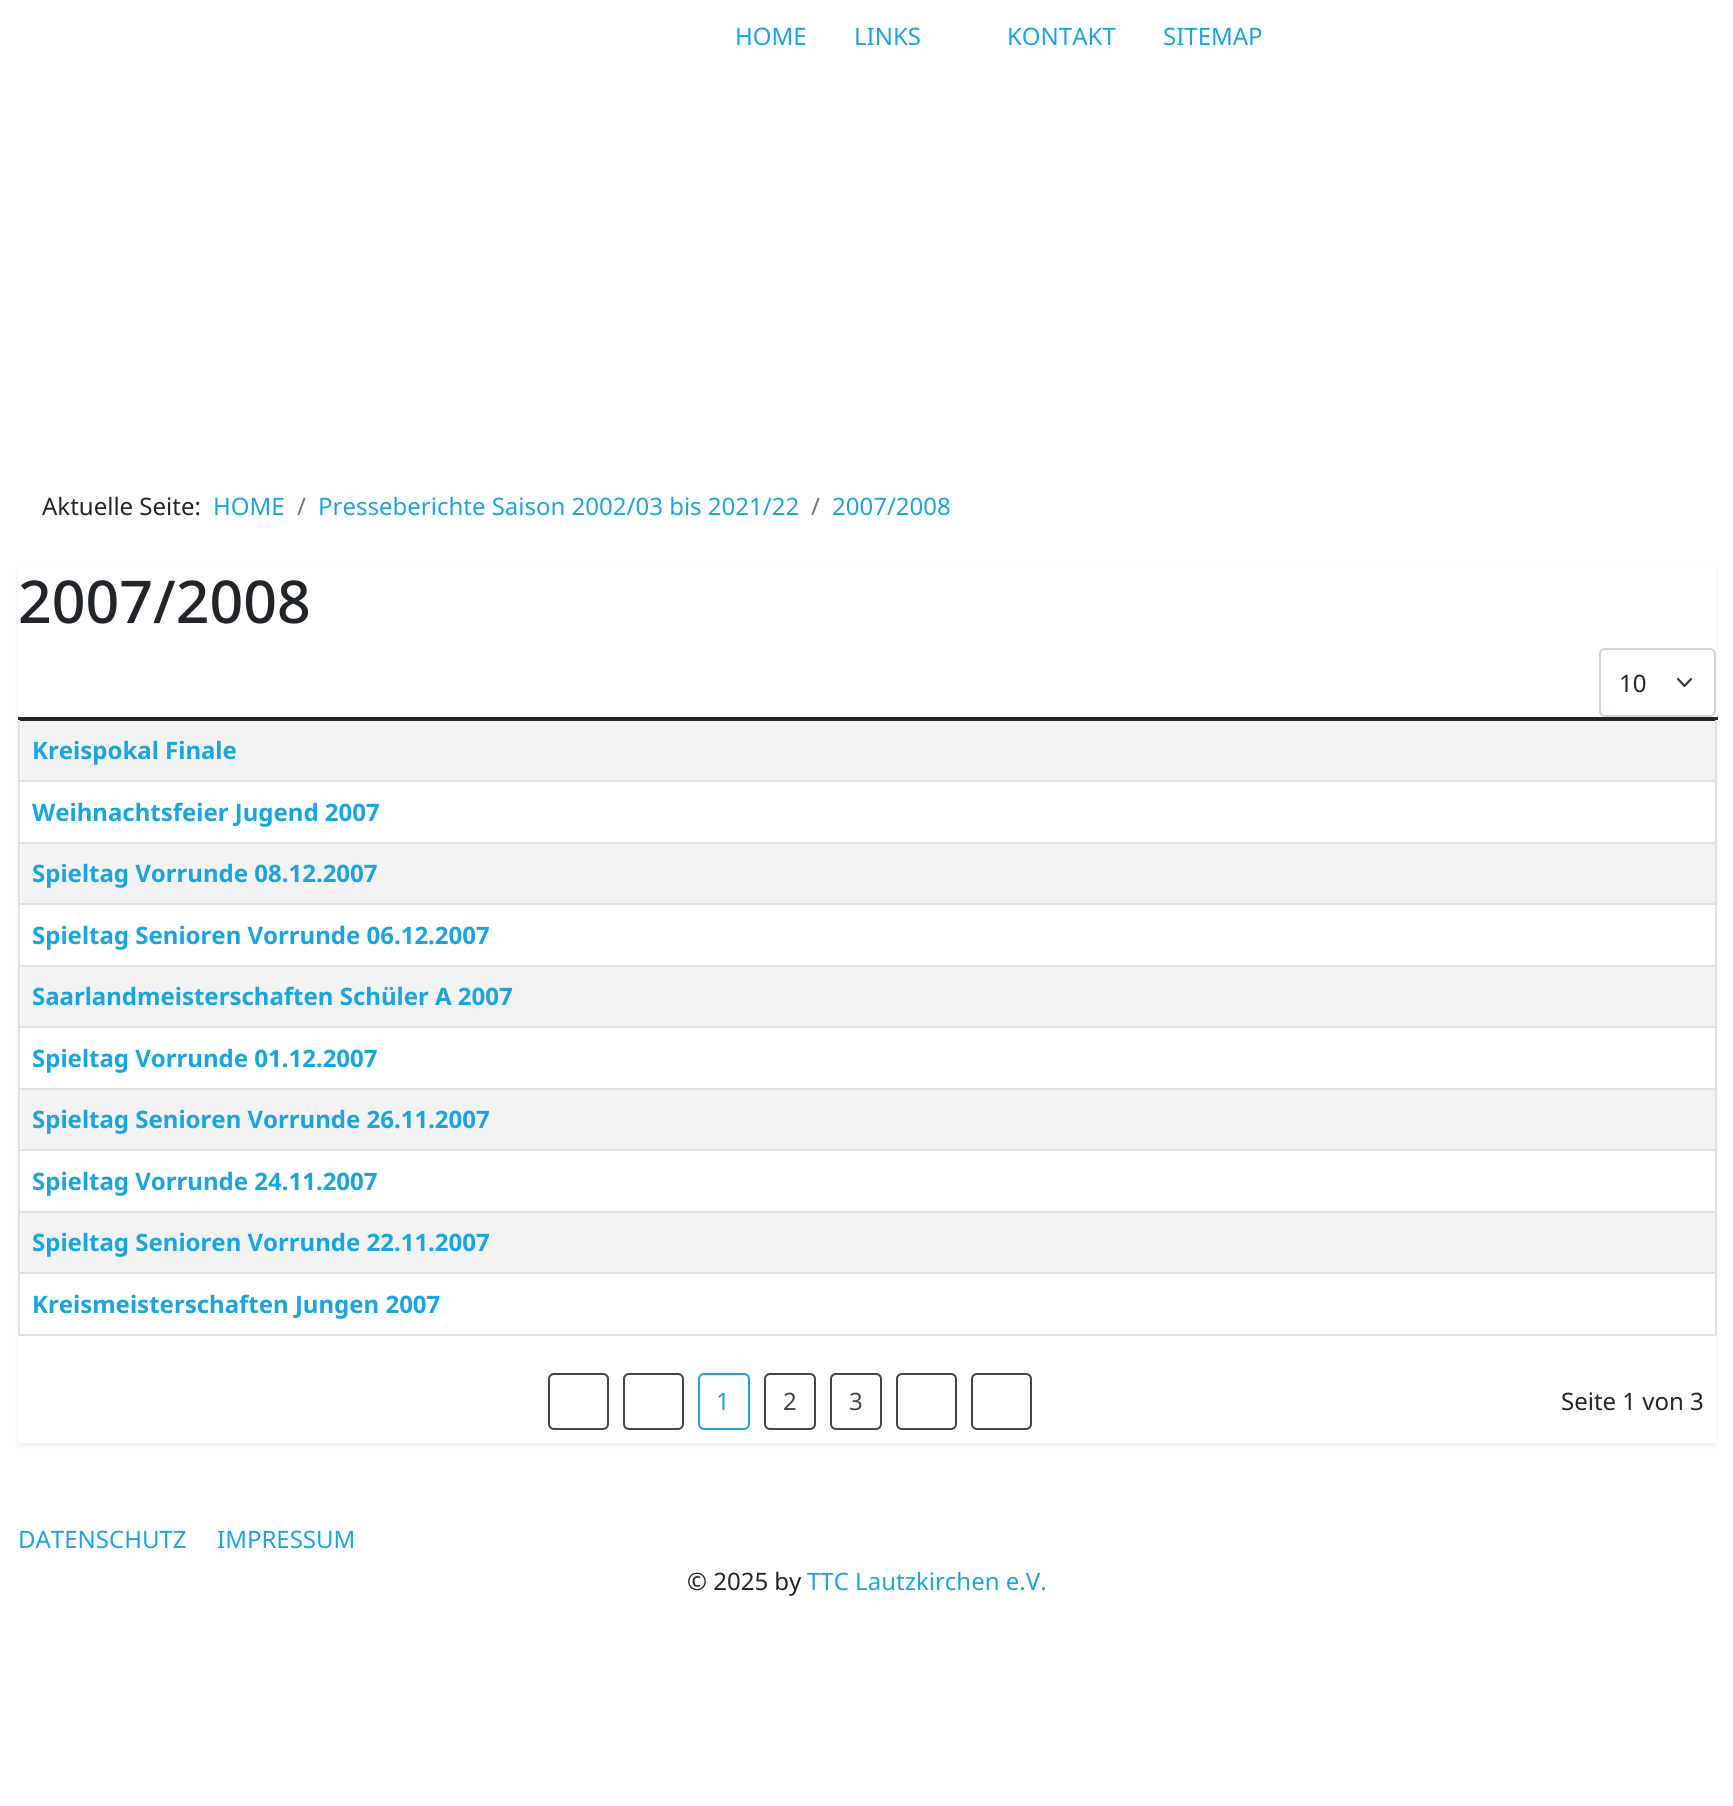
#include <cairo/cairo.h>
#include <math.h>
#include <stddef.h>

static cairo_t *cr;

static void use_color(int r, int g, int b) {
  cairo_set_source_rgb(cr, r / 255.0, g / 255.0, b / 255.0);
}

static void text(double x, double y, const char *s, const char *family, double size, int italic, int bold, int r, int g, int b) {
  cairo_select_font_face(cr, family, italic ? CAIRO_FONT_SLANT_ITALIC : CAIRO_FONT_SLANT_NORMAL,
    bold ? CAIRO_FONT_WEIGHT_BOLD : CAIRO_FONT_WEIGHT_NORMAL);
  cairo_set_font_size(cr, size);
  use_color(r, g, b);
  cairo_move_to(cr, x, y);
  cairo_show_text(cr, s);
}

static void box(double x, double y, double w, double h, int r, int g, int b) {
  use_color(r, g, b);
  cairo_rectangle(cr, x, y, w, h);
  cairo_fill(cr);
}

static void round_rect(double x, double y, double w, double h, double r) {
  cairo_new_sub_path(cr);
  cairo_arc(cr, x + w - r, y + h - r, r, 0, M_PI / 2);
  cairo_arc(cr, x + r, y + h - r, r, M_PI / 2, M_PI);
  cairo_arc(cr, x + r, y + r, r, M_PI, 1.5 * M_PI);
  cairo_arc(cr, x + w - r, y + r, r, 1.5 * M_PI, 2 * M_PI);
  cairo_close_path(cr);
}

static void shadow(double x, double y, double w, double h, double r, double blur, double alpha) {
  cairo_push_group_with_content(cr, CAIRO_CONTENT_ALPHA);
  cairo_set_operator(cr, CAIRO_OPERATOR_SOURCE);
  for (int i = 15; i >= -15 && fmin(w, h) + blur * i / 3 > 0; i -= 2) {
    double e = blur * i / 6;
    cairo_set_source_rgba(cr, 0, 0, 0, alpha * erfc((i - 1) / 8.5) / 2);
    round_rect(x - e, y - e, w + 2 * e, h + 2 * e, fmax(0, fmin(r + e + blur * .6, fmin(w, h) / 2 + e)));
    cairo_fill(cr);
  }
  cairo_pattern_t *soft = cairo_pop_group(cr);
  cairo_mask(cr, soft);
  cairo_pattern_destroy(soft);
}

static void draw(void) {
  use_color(255, 255, 255);
  cairo_paint(cr);
  cairo_save(cr);
  cairo_set_fill_rule(cr, CAIRO_FILL_RULE_EVEN_ODD);
  cairo_new_path(cr);
  cairo_move_to(cr, 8, 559);
  cairo_line_to(cr, 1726, 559);
  cairo_line_to(cr, 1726, 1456);
  cairo_line_to(cr, 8, 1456);
  cairo_close_path(cr);
  cairo_move_to(cr, 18, 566);
  cairo_line_to(cr, 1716, 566);
  cairo_line_to(cr, 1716, 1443);
  cairo_line_to(cr, 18, 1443);
  cairo_close_path(cr);
  cairo_clip(cr);
  use_color(0, 0, 0);
  shadow(18, 569, 1698, 877, 0, 3, 0.07);
  cairo_restore(cr);
  cairo_new_path(cr);
  cairo_move_to(cr, 1678, 679);
  cairo_line_to(cr, 1684.5, 686);
  cairo_line_to(cr, 1691, 679);
  use_color(52, 58, 64);
  cairo_set_line_width(cr, 2.2);
  cairo_set_line_cap(cr, CAIRO_LINE_CAP_ROUND);
  cairo_set_line_join(cr, CAIRO_LINE_JOIN_ROUND);
  cairo_stroke(cr);
  round_rect(1600, 649, 115, 67, 5);
  use_color(206, 212, 218);
  cairo_set_line_width(cr, 2);
  cairo_set_line_cap(cr, CAIRO_LINE_CAP_BUTT);
  cairo_set_line_join(cr, CAIRO_LINE_JOIN_MITER);
  cairo_stroke(cr);
  box(18, 720, 1698, 1, 33, 37, 41);
  box(18, 780, 1698, 2, 222, 226, 230);
  box(18, 842, 1698, 2, 222, 226, 230);
  box(18, 903, 1698, 2, 222, 226, 230);
  box(18, 965, 1698, 2, 222, 226, 230);
  box(18, 1026, 1698, 2, 222, 226, 230);
  box(18, 1088, 1698, 2, 222, 226, 230);
  box(18, 1149, 1698, 2, 222, 226, 230);
  box(18, 1211, 1698, 2, 222, 226, 230);
  box(18, 1272, 1698, 2, 222, 226, 230);
  box(18, 1334, 1698, 2, 222, 226, 230);
  box(1715, 719, 2, 616, 222, 226, 230);
  box(18, 719, 2, 616, 222, 226, 230);
  box(18, 717, 1700, 3, 33, 37, 41);
  box(21, 721, 1694, 59, 243, 243, 243);
  box(21, 844, 1694, 59, 243, 243, 243);
  box(21, 967, 1694, 59, 243, 243, 243);
  box(21, 1090, 1694, 59, 243, 243, 243);
  box(21, 1213, 1694, 59, 243, 243, 243);
  round_rect(549, 1374, 59, 55, 5);
  use_color(68, 68, 68);
  cairo_stroke(cr);
  round_rect(624, 1374, 59, 55, 5);
  cairo_stroke(cr);
  round_rect(699, 1374, 50, 55, 5);
  use_color(26, 164, 224);
  cairo_stroke(cr);
  round_rect(765, 1374, 50, 55, 5);
  use_color(68, 68, 68);
  cairo_stroke(cr);
  round_rect(831, 1374, 50, 55, 5);
  cairo_stroke(cr);
  round_rect(897, 1374, 59, 55, 5);
  cairo_stroke(cr);
  round_rect(972, 1374, 59, 55, 5);
  cairo_stroke(cr);
  text(735, 45, "HOME", "Noto Sans", 24, 0, 0, 26, 164, 224);
  text(854, 45, "LINKS", "Noto Sans", 24, 0, 0, 26, 164, 224);
  text(1007, 45, "KONTAKT", "Noto Sans", 24, 0, 0, 26, 164, 224);
  text(1163, 45, "SITEMAP", "Noto Sans", 24, 0, 0, 26, 164, 224);
  text(42, 515, "Aktuelle Seite:", "Noto Sans", 24, 0, 0, 33, 37, 41);
  text(213, 515, "HOME", "Noto Sans", 24, 0, 0, 26, 164, 224);
  text(297, 515, "/", "Noto Sans", 24, 0, 0, 108, 117, 125);
  text(318, 515, "Presseberichte Saison 2002/03 bis 2021/22", "Noto Sans", 24, 0, 0, 26, 164, 224);
  text(811, 515, "/", "Noto Sans", 24, 0, 0, 108, 117, 125);
  text(832, 515, "2007/2008", "Noto Sans", 24, 0, 0, 26, 164, 224);
  text(18, 623, "2007/2008", "Noto Sans Medium", 59, 0, 0, 33, 37, 41);
  text(1619, 692, "10", "Noto Sans", 24, 0, 0, 33, 37, 41);
  text(32, 759, "Kreispokal Finale", "Noto Sans", 24, 0, 1, 26, 164, 224);
  text(32, 821, "Weihnachtsfeier Jugend 2007", "Noto Sans", 24, 0, 1, 26, 164, 224);
  text(32, 882, "Spieltag Vorrunde 08.12.2007", "Noto Sans", 24, 0, 1, 26, 164, 224);
  text(32, 944, "Spieltag Senioren Vorrunde 06.12.2007", "Noto Sans", 24, 0, 1, 26, 164, 224);
  text(32, 1005, "Saarlandmeisterschaften Schüler A 2007", "Noto Sans", 24, 0, 1, 26, 164, 224);
  text(32, 1067, "Spieltag Vorrunde 01.12.2007", "Noto Sans", 24, 0, 1, 26, 164, 224);
  text(32, 1128, "Spieltag Senioren Vorrunde 26.11.2007", "Noto Sans", 24, 0, 1, 26, 164, 224);
  text(32, 1190, "Spieltag Vorrunde 24.11.2007", "Noto Sans", 24, 0, 1, 26, 164, 224);
  text(32, 1251, "Spieltag Senioren Vorrunde 22.11.2007", "Noto Sans", 24, 0, 1, 26, 164, 224);
  text(32, 1313, "Kreismeisterschaften Jungen 2007", "Noto Sans", 24, 0, 1, 26, 164, 224);
  text(716, 1410, "1", "Noto Sans", 24, 0, 0, 26, 164, 224);
  text(783, 1410, "2", "Noto Sans", 24, 0, 0, 68, 68, 68);
  text(849, 1410, "3", "Noto Sans", 24, 0, 0, 68, 68, 68);
  text(1561, 1410, "Seite 1 von 3", "Noto Sans", 24, 0, 0, 33, 37, 41);
  text(18, 1548, "DATENSCHUTZ", "Noto Sans", 24, 0, 0, 26, 164, 224);
  text(217, 1548, "IMPRESSUM", "Noto Sans", 24, 0, 0, 26, 164, 224);
  text(687, 1590, "© 2025 by", "Noto Sans", 24, 0, 0, 33, 37, 41);
  text(807, 1590, "TTC Lautzkirchen e.V.", "Noto Sans", 24, 0, 0, 26, 164, 224);
}

int main(void) {
  cairo_surface_t *surface = cairo_image_surface_create(CAIRO_FORMAT_RGB24, 1733, 1806);
  cr = cairo_create(surface);
  cairo_font_options_t *options = cairo_font_options_create();
  cairo_font_options_set_hint_metrics(options, CAIRO_HINT_METRICS_OFF);
  cairo_font_options_set_hint_style(options, CAIRO_HINT_STYLE_NONE);
  cairo_set_font_options(cr, options);
  cairo_set_miter_limit(cr, 4);
  draw();
  cairo_surface_write_to_png(surface, "out.png");
  cairo_font_options_destroy(options);
  cairo_destroy(cr);
  cairo_surface_destroy(surface);
  return 0;
}
